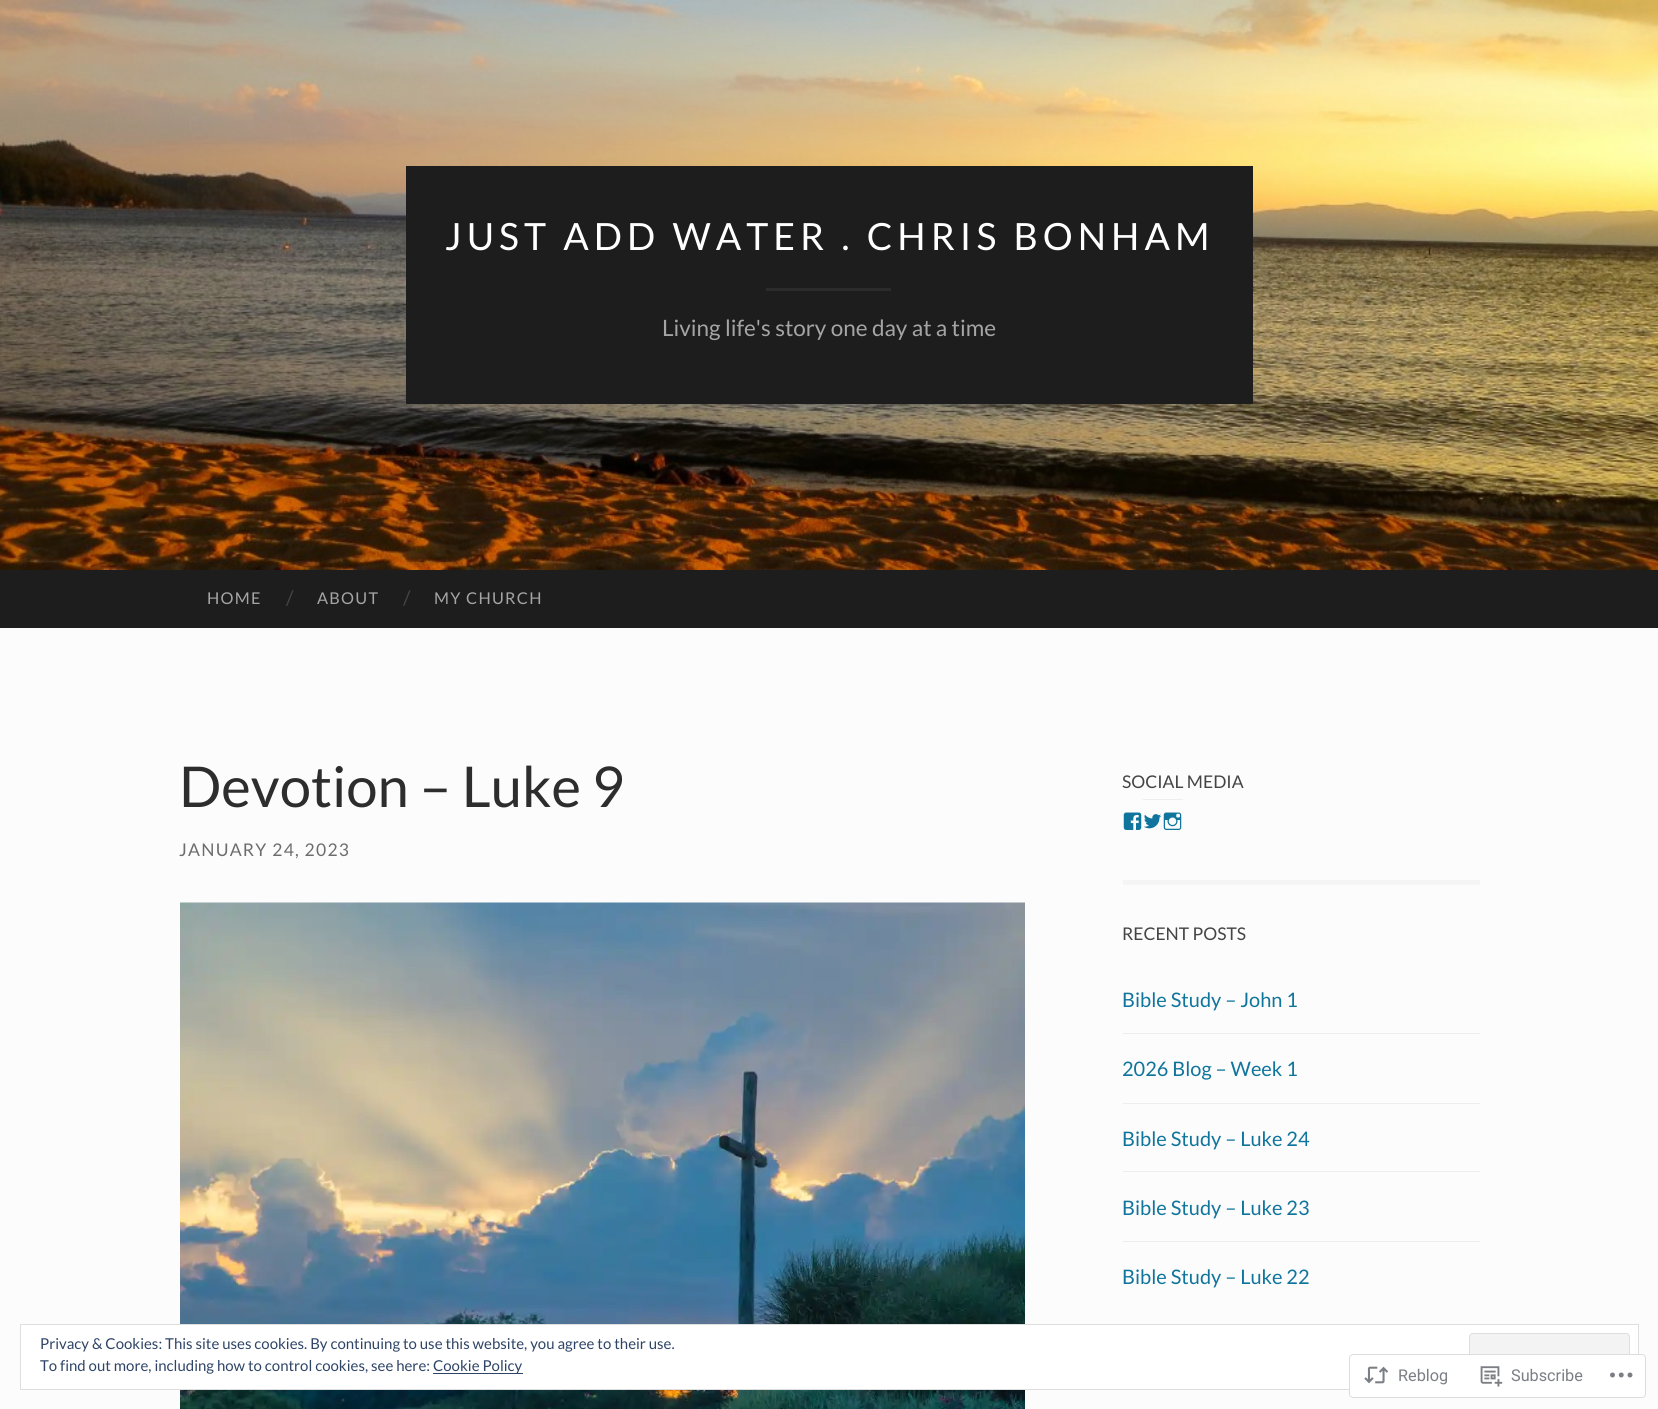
#include <cairo/cairo.h>
#include <math.h>
#include <stddef.h>

static cairo_t *cr;

static void use_color(int r, int g, int b) {
  cairo_set_source_rgb(cr, r / 255.0, g / 255.0, b / 255.0);
}

static void text(double x, double y, const char *s, const char *family, double size, int italic, int bold, int r, int g, int b) {
  cairo_select_font_face(cr, family, italic ? CAIRO_FONT_SLANT_ITALIC : CAIRO_FONT_SLANT_NORMAL,
    bold ? CAIRO_FONT_WEIGHT_BOLD : CAIRO_FONT_WEIGHT_NORMAL);
  cairo_set_font_size(cr, size);
  use_color(r, g, b);
  cairo_move_to(cr, x, y);
  cairo_show_text(cr, s);
}

static void spaced_text(double x, double y, const char *s, double letter, double word) {
  cairo_move_to(cr, x, y);
  while (*s) {
    char ch[5] = {0};
    int n = 0;
    do ch[n++] = *s++; while ((*s & 0xC0) == 0x80);
    cairo_show_text(cr, ch);
    cairo_rel_move_to(cr, letter + word * (*ch == ' '), 0);
  }
}

static void box(double x, double y, double w, double h, int r, int g, int b) {
  use_color(r, g, b);
  cairo_rectangle(cr, x, y, w, h);
  cairo_fill(cr);
}

static void round_rect(double x, double y, double w, double h, double r) {
  cairo_new_sub_path(cr);
  cairo_arc(cr, x + w - r, y + h - r, r, 0, M_PI / 2);
  cairo_arc(cr, x + r, y + h - r, r, M_PI / 2, M_PI);
  cairo_arc(cr, x + r, y + r, r, M_PI, 1.5 * M_PI);
  cairo_arc(cr, x + w - r, y + r, r, 1.5 * M_PI, 2 * M_PI);
  cairo_close_path(cr);
}

static void picture(const char *path, double x, double y, double w, double h) {
  cairo_surface_t *image = cairo_image_surface_create_from_png(path);
  cairo_save(cr);
  cairo_set_source_surface(cr, image, x, y);
  cairo_rectangle(cr, x, y, w, h);
  cairo_fill(cr);
  cairo_restore(cr);
  cairo_surface_destroy(image);
}

static void draw(void) {
  use_color(252, 252, 252);
  cairo_paint(cr);
  picture("img_01.png", 0, 0, 1658, 570);
  box(406, 166, 847, 238, 29, 29, 29);
  box(766, 288, 125, 3, 43, 43, 43);
  box(0, 570, 1658, 58, 29, 29, 29);
  picture("img_02.png", 180, 902, 845, 507);
  box(1123, 880, 357, 5, 245, 245, 245);
  picture("img_03.png", 1123, 812, 19, 18);
  box(1143, 799, 40, 1, 238, 238, 238);
  picture("img_04.png", 1144, 814, 18, 15);
  picture("img_05.png", 1163, 812, 19, 18);
  box(1123, 1033, 357, 1, 238, 238, 238);
  box(1123, 1103, 357, 1, 238, 238, 238);
  box(1123, 1171, 357, 1, 238, 238, 238);
  box(1123, 1241, 357, 1, 238, 238, 238);
  use_color(255, 255, 255);
  cairo_rectangle(cr, 20.5, 1324.5, 1618, 65);
  cairo_fill_preserve(cr);
  use_color(222, 222, 222);
  cairo_set_line_width(cr, 1);
  cairo_stroke(cr);
  use_color(243, 243, 243);
  round_rect(1469.5, 1333.5, 160, 47, 3.5);
  cairo_fill_preserve(cr);
  use_color(222, 222, 222);
  cairo_stroke(cr);
  box(433, 1373, 90, 1, 46, 68, 103);
  cairo_set_source_rgba(cr, 1, 1, 1, 0.98);
  round_rect(1349, 1354, 297, 44, 4);
  cairo_fill(cr);
  round_rect(1349.5, 1354.5, 296, 43, 3.5);
  cairo_set_source_rgba(cr, 0.863, 0.863, 0.871, 0.98);
  cairo_stroke(cr);
  picture("img_06.png", 1364, 1366, 25, 18);
  picture("img_07.png", 1480, 1366, 23, 21);
  picture("img_08.png", 1610, 1372, 23, 6);
  cairo_select_font_face(cr, "Lato", CAIRO_FONT_SLANT_NORMAL, CAIRO_FONT_WEIGHT_NORMAL);
  cairo_set_font_size(cr, 37.5);
  use_color(255, 255, 255);
  spaced_text(445, 250, "JUST ADD WATER . CHRIS BONHAM", 5, 0);
  text(662, 336, "Living life's story one day at a time", "Lato", 22.5, 0, 0, 165, 165, 165);
  cairo_set_font_size(cr, 16.25);
  spaced_text(207, 604, "HOME", 1.25, 0);
  text(286, 605, "/", "Lato", 20, 0, 0, 68, 68, 68);
  cairo_set_font_size(cr, 16.25);
  use_color(165, 165, 165);
  spaced_text(317, 604, "ABOUT", 1.25, 0);
  text(403, 605, "/", "Lato", 20, 0, 0, 68, 68, 68);
  cairo_set_font_size(cr, 16.25);
  use_color(165, 165, 165);
  spaced_text(434, 604, "MY CHURCH", 1.25, 0);
  text(179, 807, "Devotion – Luke 9", "Lato", 56.25, 0, 0, 45, 45, 45);
  cairo_set_font_size(cr, 17.5);
  use_color(109, 109, 109);
  spaced_text(179, 856, "JANUARY 24, 2023", 1.25, 0);
  text(1122, 788, "SOCIAL MEDIA", "Lato", 17.5, 0, 0, 68, 68, 68);
  text(1122, 940, "RECENT POSTS", "Lato", 17.5, 0, 0, 68, 68, 68);
  text(1122, 1007, "Bible Study – John 1", "Lato", 20, 0, 0, 16, 117, 156);
  text(1122, 1076, "2026 Blog – Week 1", "Lato", 20, 0, 0, 16, 117, 156);
  text(1122, 1146, "Bible Study – Luke 24", "Lato", 20, 0, 0, 16, 117, 156);
  text(1122, 1215, "Bible Study – Luke 23", "Lato", 20, 0, 0, 16, 117, 156);
  text(1122, 1284, "Bible Study – Luke 22", "Lato", 20, 0, 0, 16, 117, 156);
  text(40, 1349, "Privacy & Cookies: This site uses cookies. By continuing to use this website, you agree to their use.", "Lato", 15, 0, 0, 46, 68, 103);
  text(40, 1371, "To find out more, including how to control cookies, see here:", "Lato", 15, 0, 0, 46, 68, 103);
  text(433, 1371, "Cookie Policy", "Lato", 15, 0, 0, 46, 68, 103);
  text(1398, 1381, "Reblog", "Roboto", 16.25, 0, 0, 123, 127, 133);
  text(1511, 1381, "Subscribe", "Roboto", 16.25, 0, 0, 123, 127, 133);
}

int main(void) {
  cairo_surface_t *surface = cairo_image_surface_create(CAIRO_FORMAT_RGB24, 1658, 1409);
  cr = cairo_create(surface);
  cairo_font_options_t *options = cairo_font_options_create();
  cairo_font_options_set_hint_metrics(options, CAIRO_HINT_METRICS_OFF);
  cairo_font_options_set_hint_style(options, CAIRO_HINT_STYLE_NONE);
  cairo_set_font_options(cr, options);
  cairo_set_miter_limit(cr, 4);
  draw();
  cairo_surface_write_to_png(surface, "out.png");
  cairo_font_options_destroy(options);
  cairo_destroy(cr);
  cairo_surface_destroy(surface);
  return 0;
}
